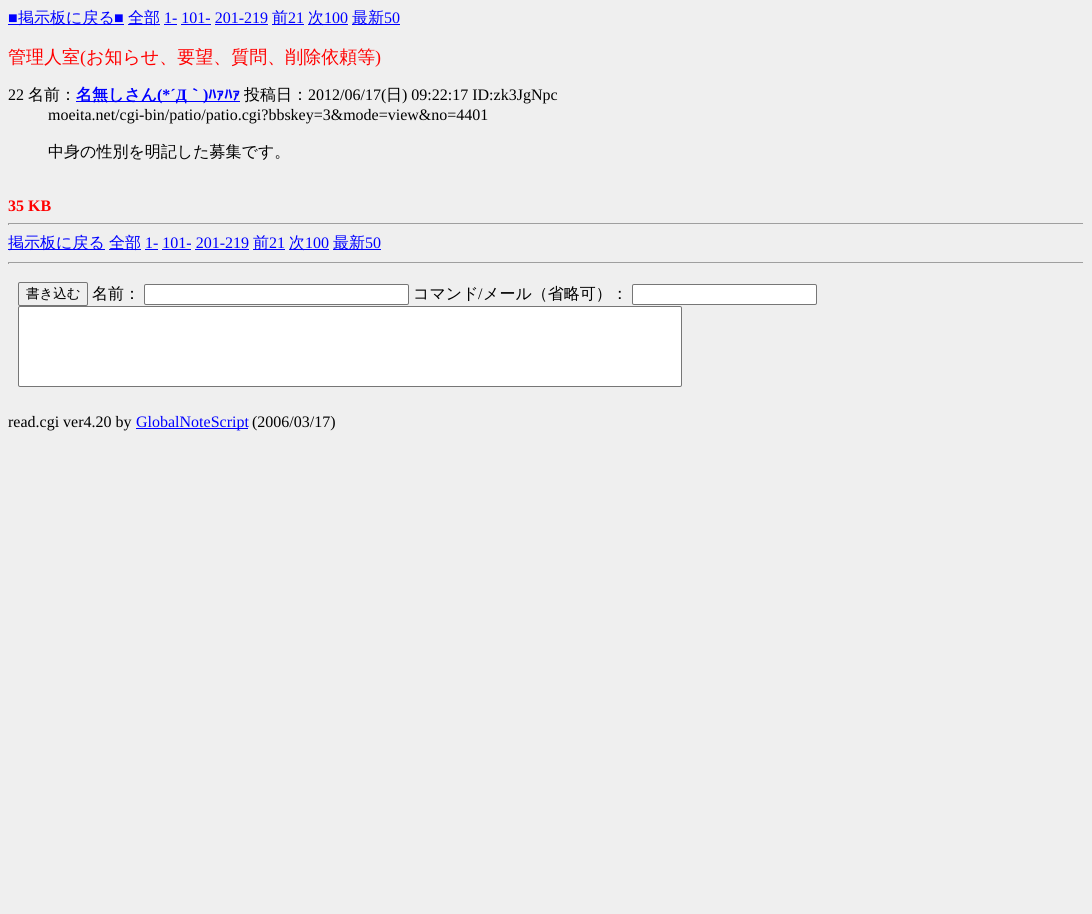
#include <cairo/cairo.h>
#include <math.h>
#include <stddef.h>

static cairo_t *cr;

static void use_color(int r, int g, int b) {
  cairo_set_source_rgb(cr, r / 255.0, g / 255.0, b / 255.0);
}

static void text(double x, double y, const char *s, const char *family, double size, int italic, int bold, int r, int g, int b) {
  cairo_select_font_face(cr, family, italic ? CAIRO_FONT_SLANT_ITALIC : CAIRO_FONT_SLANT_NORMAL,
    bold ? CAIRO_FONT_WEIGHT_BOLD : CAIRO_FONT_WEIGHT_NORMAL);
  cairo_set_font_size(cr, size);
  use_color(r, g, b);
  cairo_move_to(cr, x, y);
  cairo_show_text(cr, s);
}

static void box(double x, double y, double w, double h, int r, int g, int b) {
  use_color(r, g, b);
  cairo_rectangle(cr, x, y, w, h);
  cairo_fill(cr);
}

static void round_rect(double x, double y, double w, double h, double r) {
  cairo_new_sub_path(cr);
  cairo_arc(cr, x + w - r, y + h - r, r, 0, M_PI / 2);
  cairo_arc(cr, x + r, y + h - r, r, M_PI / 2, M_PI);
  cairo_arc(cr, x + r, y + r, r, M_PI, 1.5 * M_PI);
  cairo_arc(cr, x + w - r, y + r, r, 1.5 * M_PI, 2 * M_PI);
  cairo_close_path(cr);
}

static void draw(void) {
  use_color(239, 239, 239);
  cairo_paint(cr);
  box(8, 24, 116, 1, 0, 0, 255);
  box(128, 24, 32, 1, 0, 0, 255);
  box(164, 24, 13, 1, 0, 0, 255);
  box(272, 24, 32, 1, 0, 0, 255);
  box(308, 24, 40, 1, 0, 0, 255);
  box(352, 24, 48, 1, 0, 0, 255);
  box(181, 24, 30, 1, 0, 0, 255);
  box(215, 24, 53, 1, 0, 0, 255);
  box(76, 101, 164, 1, 0, 0, 255);
  box(8, 223, 1076, 1, 159, 159, 159);
  box(1083, 223, 1, 2, 238, 238, 238);
  box(8, 223, 1, 2, 159, 159, 159);
  box(8, 249, 97, 1, 0, 0, 255);
  box(109, 249, 32, 1, 0, 0, 255);
  box(145, 249, 13, 1, 0, 0, 255);
  box(253, 249, 32, 1, 0, 0, 255);
  box(289, 249, 40, 1, 0, 0, 255);
  box(333, 249, 48, 1, 0, 0, 255);
  box(162, 249, 29, 1, 0, 0, 255);
  box(195, 249, 54, 1, 0, 0, 255);
  box(8, 262, 1076, 1, 159, 159, 159);
  box(1083, 262, 1, 2, 238, 238, 238);
  box(8, 262, 1, 2, 159, 159, 159);
  round_rect(18.5, 282.5, 69, 23, 1.5);
  use_color(118, 118, 118);
  cairo_set_line_width(cr, 1);
  cairo_stroke(cr);
  use_color(255, 255, 255);
  round_rect(144.5, 284.5, 264, 20, 1.5);
  cairo_fill_preserve(cr);
  use_color(118, 118, 118);
  cairo_stroke(cr);
  use_color(255, 255, 255);
  round_rect(632.5, 284.5, 184, 20, 1.5);
  cairo_fill_preserve(cr);
  use_color(118, 118, 118);
  cairo_stroke(cr);
  use_color(255, 255, 255);
  round_rect(18.5, 306.5, 663, 80, 1.5);
  cairo_fill_preserve(cr);
  use_color(118, 118, 118);
  cairo_stroke(cr);
  box(136, 428, 112, 1, 0, 0, 255);
  text(8, 23, "■", "Liberation Serif", 16, 0, 0, 0, 0, 255);
  text(18, 23, "掲示板に戻る", "WenQuanYi Zen Hei Medium", 16, 0, 0, 0, 0, 255);
  text(114, 23, "■", "Liberation Serif", 16, 0, 0, 0, 0, 255);
  text(128, 23, "全部", "WenQuanYi Zen Hei Medium", 16, 0, 0, 0, 0, 255);
  text(164, 23, "1- 101- 201-219", "Liberation Serif", 16, 0, 0, 0, 0, 255);
  text(272, 23, "前", "WenQuanYi Zen Hei Medium", 16, 0, 0, 0, 0, 255);
  text(288, 23, "21", "Liberation Serif", 16, 0, 0, 0, 0, 255);
  text(308, 23, "次", "WenQuanYi Zen Hei Medium", 16, 0, 0, 0, 0, 255);
  text(324, 23, "100", "Liberation Serif", 16, 0, 0, 0, 0, 255);
  text(352, 23, "最新", "WenQuanYi Zen Hei Medium", 16, 0, 0, 0, 0, 255);
  text(384, 23, "50", "Liberation Serif", 16, 0, 0, 0, 0, 255);
  text(8, 63, "管理人室", "WenQuanYi Zen Hei Medium", 18, 0, 0, 255, 0, 0);
  text(80, 63, "(", "Liberation Serif", 18, 0, 0, 255, 0, 0);
  text(86, 63, "お知らせ、要望、質問、削除依頼等", "WenQuanYi Zen Hei Medium", 18, 0, 0, 255, 0, 0);
  text(375, 63, ")", "Liberation Serif", 18, 0, 0, 255, 0, 0);
  text(8, 100, "22", "Liberation Serif", 16, 0, 0, 0, 0, 0);
  text(28, 100, "名前：", "WenQuanYi Zen Hei Medium", 16, 0, 0, 0, 0, 0);
  text(76, 100, "名無しさん", "WenQuanYi Zen Hei", 16, 0, 1, 0, 0, 255);
  text(157, 100, "(*´Д", "Liberation Serif", 16, 0, 1, 0, 0, 255);
  text(187, 100, "｀", "WenQuanYi Zen Hei", 16, 0, 1, 0, 0, 255);
  text(203, 100, ")", "Liberation Serif", 16, 0, 1, 0, 0, 255);
  text(208, 100, "ﾊｧﾊｧ", "IPAGothic", 16, 0, 1, 0, 0, 255);
  text(244, 100, "投稿日：", "WenQuanYi Zen Hei Medium", 16, 0, 0, 0, 0, 0);
  text(308, 100, "2012/06/17(", "Liberation Serif", 16, 0, 0, 0, 0, 0);
  text(386, 100, "日", "WenQuanYi Zen Hei Medium", 16, 0, 0, 0, 0, 0);
  text(402, 100, ") 09:22:17 ID:zk3JgNpc", "Liberation Serif", 16, 0, 0, 0, 0, 0);
  text(48, 120, "moeita.net/cgi-bin/patio/patio.cgi?bbskey=3&mode=view&no=4401", "Liberation Serif", 16, 0, 0, 0, 0, 0);
  text(48, 157, "中身の性別を明記した募集です。", "WenQuanYi Zen Hei Medium", 16, 0, 0, 0, 0, 0);
  text(8, 211, "35 KB", "Liberation Serif", 16, 0, 1, 255, 0, 0);
  text(8, 248, "掲示板に戻る", "WenQuanYi Zen Hei Medium", 16, 0, 0, 0, 0, 255);
  text(109, 248, "全部", "WenQuanYi Zen Hei Medium", 16, 0, 0, 0, 0, 255);
  text(145, 248, "1- 101- 201-219", "Liberation Serif", 16, 0, 0, 0, 0, 255);
  text(253, 248, "前", "WenQuanYi Zen Hei Medium", 16, 0, 0, 0, 0, 255);
  text(269, 248, "21", "Liberation Serif", 16, 0, 0, 0, 0, 255);
  text(289, 248, "次", "WenQuanYi Zen Hei Medium", 16, 0, 0, 0, 0, 255);
  text(305, 248, "100", "Liberation Serif", 16, 0, 0, 0, 0, 255);
  text(333, 248, "最新", "WenQuanYi Zen Hei Medium", 16, 0, 0, 0, 0, 255);
  text(365, 248, "50", "Liberation Serif", 16, 0, 0, 0, 0, 255);
  text(26, 298, "書き込む", "WenQuanYi Zen Hei Medium", 13.5, 0, 0, 0, 0, 0);
  text(92, 299, "名前：", "WenQuanYi Zen Hei Medium", 16, 0, 0, 0, 0, 0);
  text(413, 299, "コマンド", "WenQuanYi Zen Hei Medium", 16, 0, 0, 0, 0, 0);
  text(478, 299, "/", "Liberation Serif", 16, 0, 0, 0, 0, 0);
  text(483, 299, "メール（省略可）：", "WenQuanYi Zen Hei Medium", 16, 0, 0, 0, 0, 0);
  text(8, 427, "read.cgi ver4.20 by", "Liberation Serif", 16, 0, 0, 0, 0, 0);
  text(136, 427, "GlobalNoteScript", "Liberation Serif", 16, 0, 0, 0, 0, 255);
  text(252, 427, "(2006/03/17)", "Liberation Serif", 16, 0, 0, 0, 0, 0);
}

int main(void) {
  cairo_surface_t *surface = cairo_image_surface_create(CAIRO_FORMAT_RGB24, 1092, 914);
  cr = cairo_create(surface);
  cairo_font_options_t *options = cairo_font_options_create();
  cairo_font_options_set_hint_metrics(options, CAIRO_HINT_METRICS_OFF);
  cairo_font_options_set_hint_style(options, CAIRO_HINT_STYLE_NONE);
  cairo_set_font_options(cr, options);
  cairo_set_miter_limit(cr, 4);
  draw();
  cairo_surface_write_to_png(surface, "out.png");
  cairo_font_options_destroy(options);
  cairo_destroy(cr);
  cairo_surface_destroy(surface);
  return 0;
}
